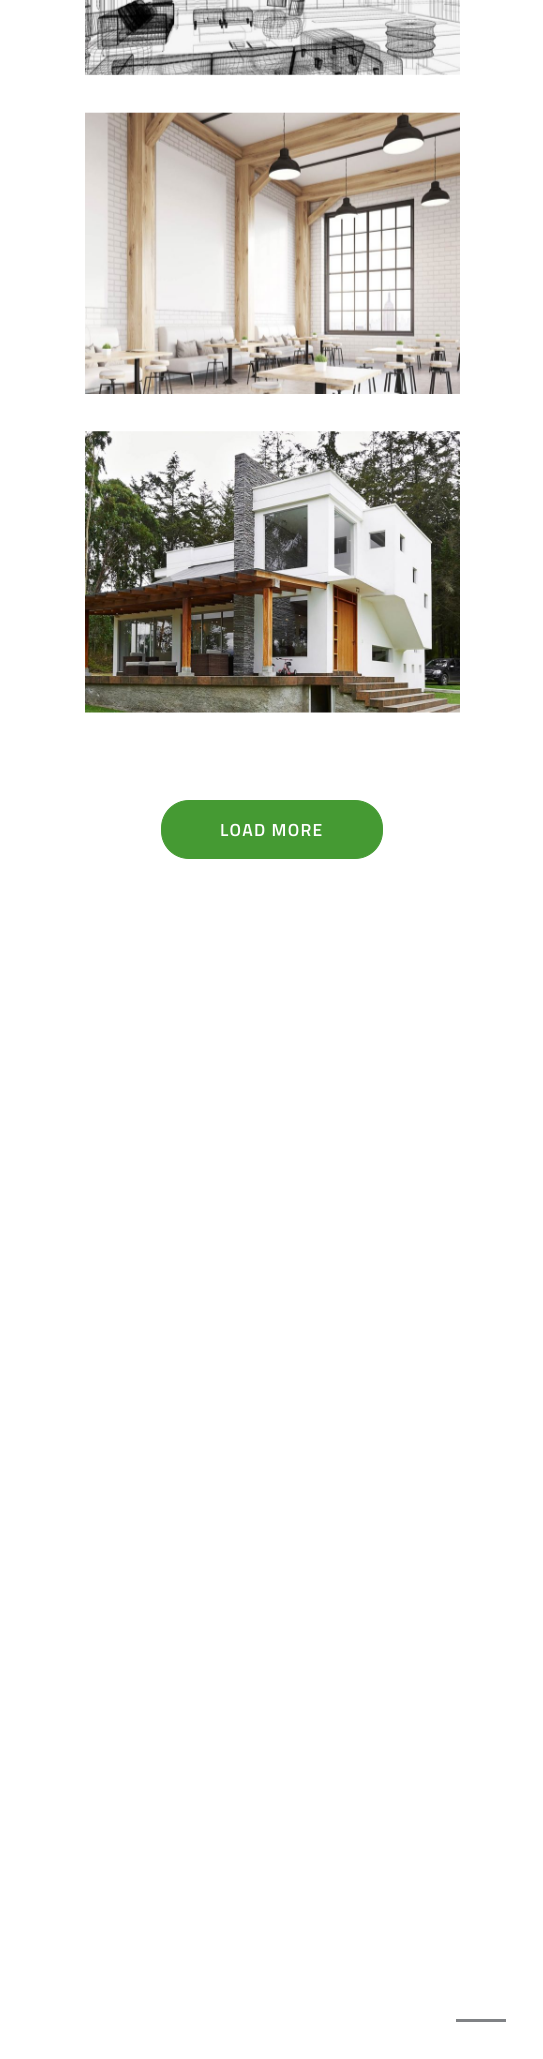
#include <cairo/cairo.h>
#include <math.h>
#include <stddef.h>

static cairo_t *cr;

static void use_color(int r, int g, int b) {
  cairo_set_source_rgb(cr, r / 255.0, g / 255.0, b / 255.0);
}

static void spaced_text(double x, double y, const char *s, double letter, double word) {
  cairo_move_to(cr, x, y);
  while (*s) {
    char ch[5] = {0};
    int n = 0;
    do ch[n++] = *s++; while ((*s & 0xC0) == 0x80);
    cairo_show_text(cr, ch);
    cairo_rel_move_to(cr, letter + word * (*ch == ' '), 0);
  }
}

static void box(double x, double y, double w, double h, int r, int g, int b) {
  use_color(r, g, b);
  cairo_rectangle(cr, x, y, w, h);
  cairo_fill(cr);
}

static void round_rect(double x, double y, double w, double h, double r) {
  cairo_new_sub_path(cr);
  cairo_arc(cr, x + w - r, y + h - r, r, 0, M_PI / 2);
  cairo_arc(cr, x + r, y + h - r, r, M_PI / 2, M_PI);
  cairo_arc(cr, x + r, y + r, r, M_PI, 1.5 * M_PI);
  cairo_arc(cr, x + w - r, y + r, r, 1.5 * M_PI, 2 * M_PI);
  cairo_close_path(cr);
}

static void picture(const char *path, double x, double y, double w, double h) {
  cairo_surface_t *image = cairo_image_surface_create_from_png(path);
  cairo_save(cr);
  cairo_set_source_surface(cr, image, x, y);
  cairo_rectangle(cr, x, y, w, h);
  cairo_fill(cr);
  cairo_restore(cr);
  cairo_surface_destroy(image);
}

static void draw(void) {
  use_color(255, 255, 255);
  cairo_paint(cr);
  picture("img_01.png", 85, 0, 375, 76);
  picture("img_02.png", 85, 112, 375, 282);
  picture("img_03.png", 85, 431, 375, 282);
  use_color(69, 154, 51);
  round_rect(161.5, 800.5, 221, 58, 27.5);
  cairo_fill_preserve(cr);
  cairo_set_line_width(cr, 1);
  cairo_stroke(cr);
  box(456, 2019, 50, 3, 128, 130, 133);
  cairo_select_font_face(cr, "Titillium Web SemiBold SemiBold", CAIRO_FONT_SLANT_NORMAL, CAIRO_FONT_WEIGHT_NORMAL);
  cairo_set_font_size(cr, 17.5);
  use_color(255, 255, 255);
  spaced_text(220, 836, "LOAD MORE", 1.25, 0);
}

int main(void) {
  cairo_surface_t *surface = cairo_image_surface_create(CAIRO_FORMAT_RGB24, 543, 2059);
  cr = cairo_create(surface);
  cairo_font_options_t *options = cairo_font_options_create();
  cairo_font_options_set_hint_metrics(options, CAIRO_HINT_METRICS_OFF);
  cairo_font_options_set_hint_style(options, CAIRO_HINT_STYLE_NONE);
  cairo_set_font_options(cr, options);
  cairo_set_miter_limit(cr, 4);
  draw();
  cairo_surface_write_to_png(surface, "out.png");
  cairo_font_options_destroy(options);
  cairo_destroy(cr);
  cairo_surface_destroy(surface);
  return 0;
}
